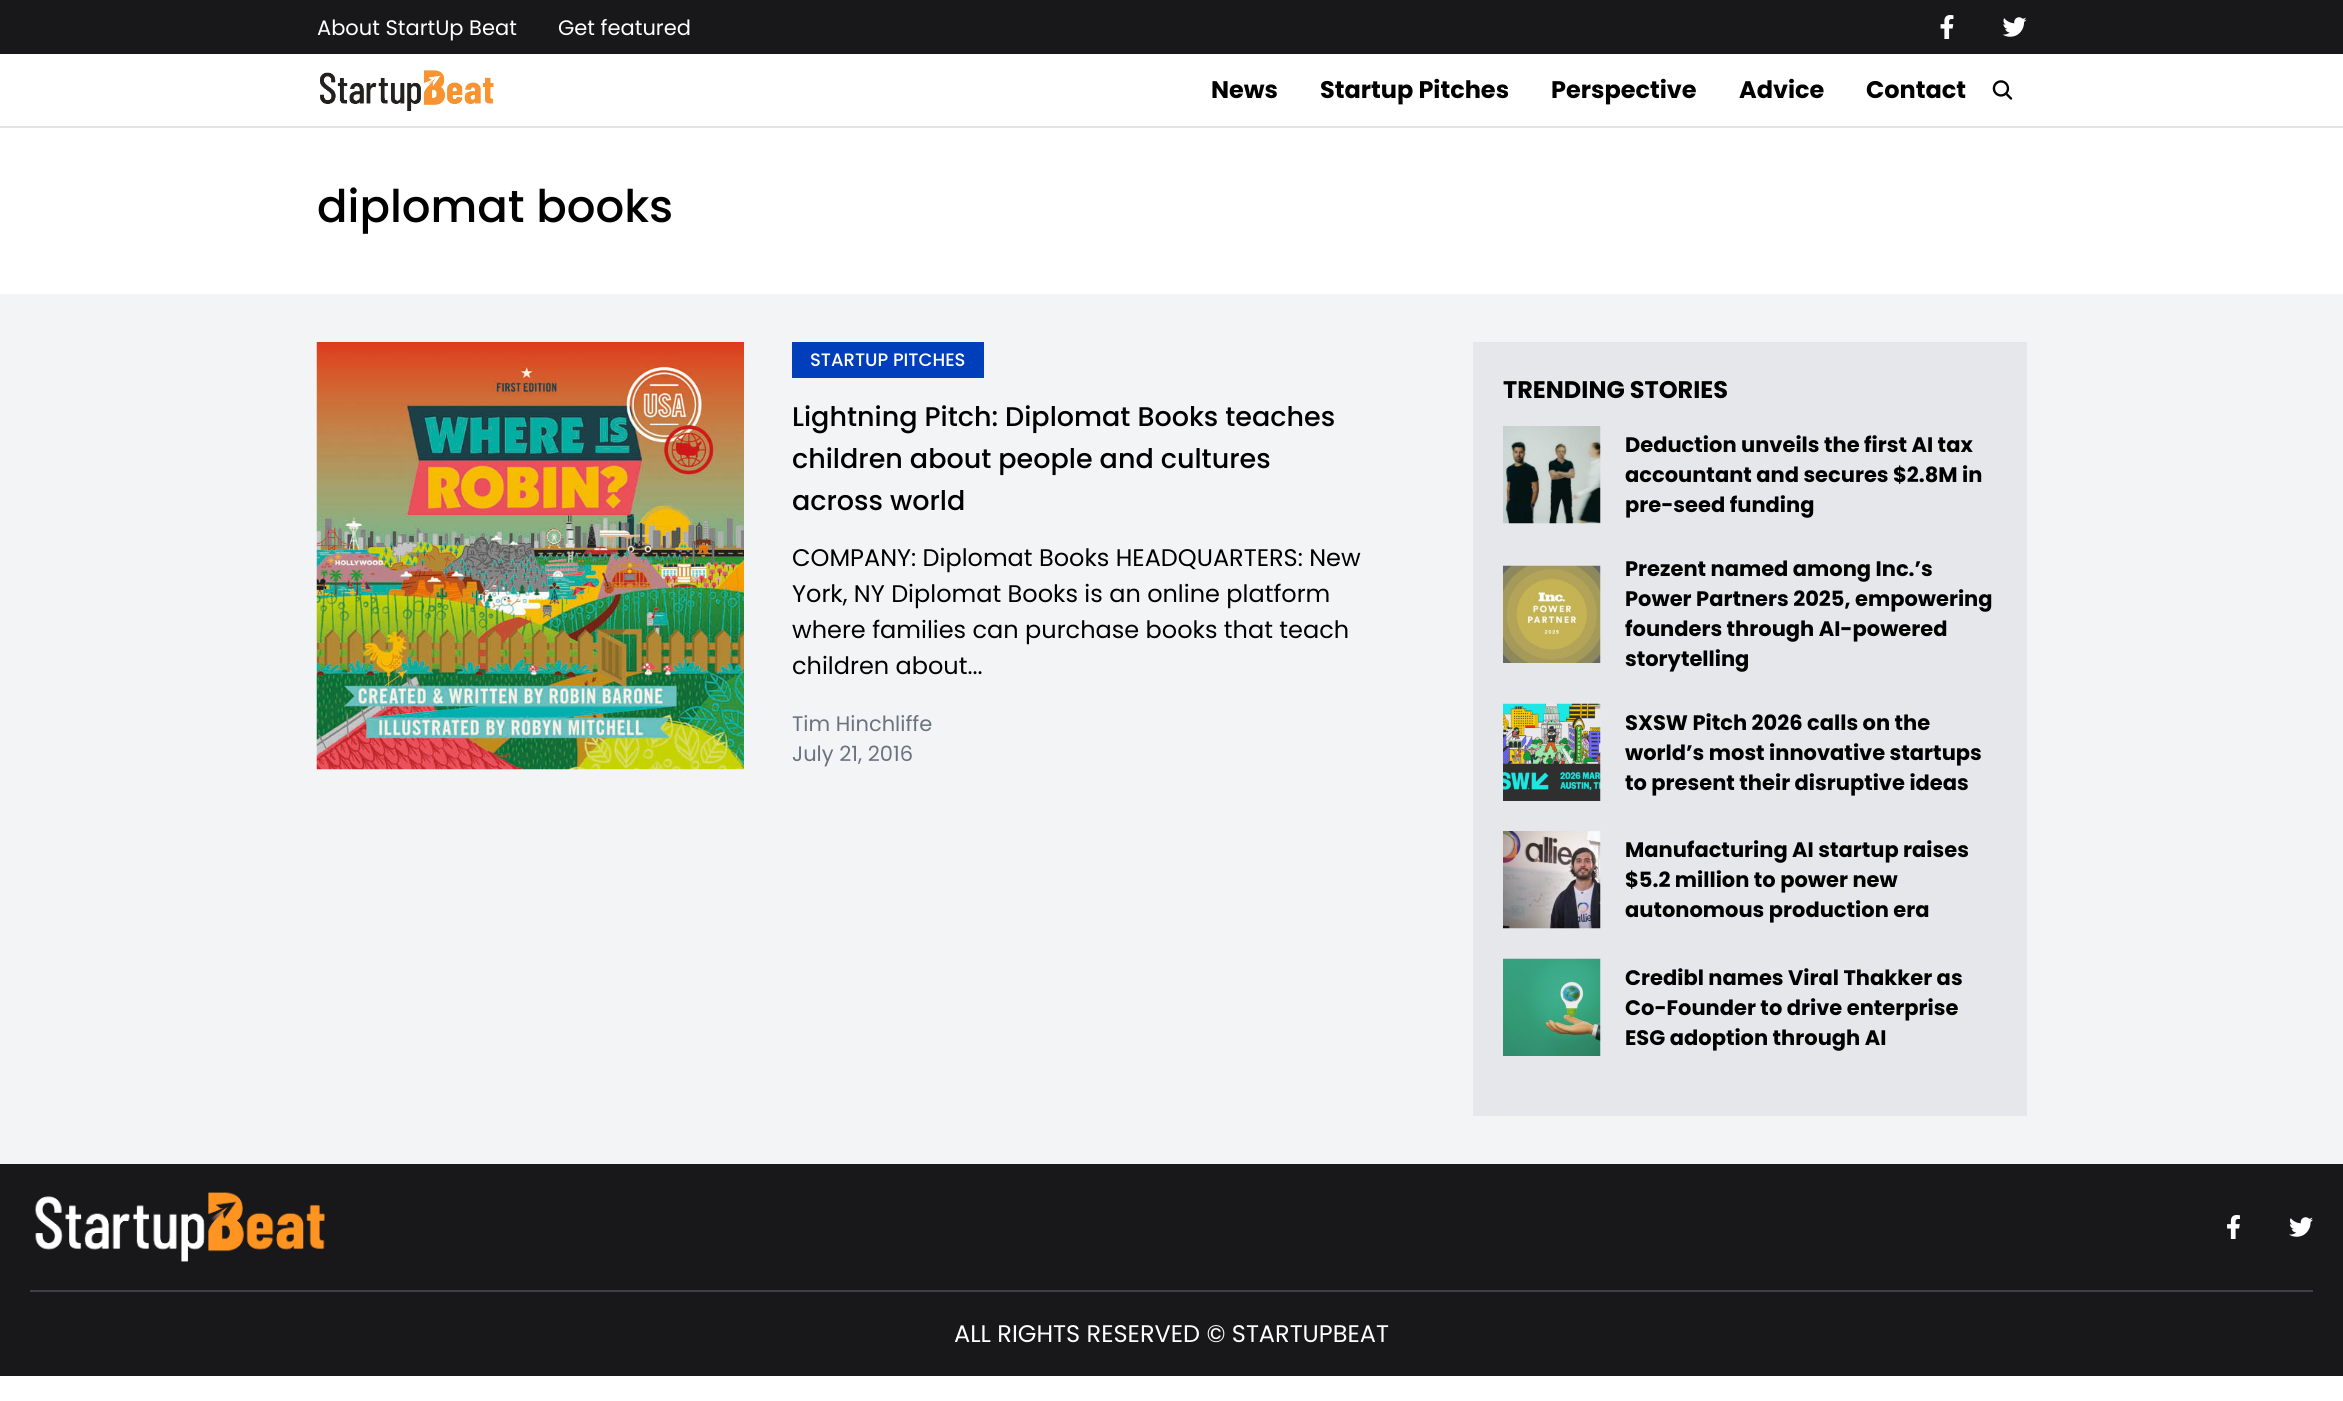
#include <cairo/cairo.h>
#include <math.h>
#include <stddef.h>

static cairo_t *cr;

static void use_color(int r, int g, int b) {
  cairo_set_source_rgb(cr, r / 255.0, g / 255.0, b / 255.0);
}

static void text(double x, double y, const char *s, const char *family, double size, int italic, int bold, int r, int g, int b) {
  cairo_select_font_face(cr, family, italic ? CAIRO_FONT_SLANT_ITALIC : CAIRO_FONT_SLANT_NORMAL,
    bold ? CAIRO_FONT_WEIGHT_BOLD : CAIRO_FONT_WEIGHT_NORMAL);
  cairo_set_font_size(cr, size);
  use_color(r, g, b);
  cairo_move_to(cr, x, y);
  cairo_show_text(cr, s);
}

static void box(double x, double y, double w, double h, int r, int g, int b) {
  use_color(r, g, b);
  cairo_rectangle(cr, x, y, w, h);
  cairo_fill(cr);
}

static void picture(const char *path, double x, double y, double w, double h) {
  cairo_surface_t *image = cairo_image_surface_create_from_png(path);
  cairo_save(cr);
  cairo_set_source_surface(cr, image, x, y);
  cairo_rectangle(cr, x, y, w, h);
  cairo_fill(cr);
  cairo_restore(cr);
  cairo_surface_destroy(image);
}

static void draw(void) {
  use_color(255, 255, 255);
  cairo_paint(cr);
  box(0, 0, 2343, 54, 24, 24, 27);
  picture("img_01.png", 1940, 15, 14, 24);
  picture("img_02.png", 2003, 17, 24, 20);
  box(0, 126, 2343, 2, 228, 228, 231);
  picture("img_03.png", 320, 70, 174, 41);
  picture("img_04.png", 1992, 80, 21, 20);
  box(0, 294, 2343, 870, 243, 244, 246);
  picture("img_05.png", 316, 342, 428, 428);
  box(792, 342, 192, 36, 0, 62, 188);
  box(1473, 342, 554, 774, 229, 231, 235);
  picture("img_06.png", 1503, 426, 98, 98);
  picture("img_07.png", 1503, 565, 98, 98);
  picture("img_08.png", 1503, 703, 98, 98);
  picture("img_09.png", 1503, 831, 98, 98);
  picture("img_10.png", 1503, 958, 98, 98);
  box(0, 1164, 2343, 212, 24, 24, 27);
  box(30, 1290, 2283, 2, 63, 63, 70);
  picture("img_11.png", 35, 1192, 290, 70);
  picture("img_12.png", 2227, 1215, 13, 24);
  picture("img_13.png", 2289, 1217, 24, 20);
  text(317, 35, "About StartUp Beat", "Poppins", 21, 0, 0, 255, 255, 255);
  text(558, 35, "Get featured", "Poppins", 21, 0, 0, 255, 255, 255);
  text(1211, 98, "News", "Poppins", 24, 0, 1, 0, 0, 0);
  text(1320, 98, "Startup Pitches", "Poppins", 24, 0, 1, 0, 0, 0);
  text(1551, 98, "Perspective", "Poppins", 24, 0, 1, 0, 0, 0);
  text(1739, 98, "Advice", "Poppins", 24, 0, 1, 0, 0, 0);
  text(1866, 98, "Contact", "Poppins", 24, 0, 1, 0, 0, 0);
  text(317, 222, "diplomat books", "Poppins Medium", 45, 0, 0, 0, 0, 0);
  text(810, 366, "STARTUP PITCHES", "Poppins Medium", 18, 0, 0, 255, 255, 255);
  text(792, 426, "Lightning Pitch: Diplomat Books teaches", "Poppins Medium", 27, 0, 0, 0, 0, 0);
  text(792, 468, "children about people and cultures", "Poppins Medium", 27, 0, 0, 0, 0, 0);
  text(792, 510, "across world", "Poppins Medium", 27, 0, 0, 0, 0, 0);
  text(792, 566, "COMPANY: Diplomat Books HEADQUARTERS: New", "Poppins", 24, 0, 0, 0, 0, 0);
  text(792, 602, "York, NY Diplomat Books is an online platform", "Poppins", 24, 0, 0, 0, 0, 0);
  text(792, 638, "where families can purchase books that teach", "Poppins", 24, 0, 0, 0, 0, 0);
  text(792, 674, "children about...", "Poppins", 24, 0, 0, 0, 0, 0);
  text(792, 731, "Tim Hinchliffe", "Poppins", 21, 0, 0, 107, 114, 128);
  text(792, 761, "July 21, 2016", "Poppins", 21, 0, 0, 107, 114, 128);
  text(1503, 398, "TRENDING STORIES", "Poppins", 24, 0, 1, 0, 0, 0);
  text(1625, 452, "Deduction unveils the first AI tax", "Poppins", 21, 0, 1, 0, 0, 0);
  text(1625, 482, "accountant and secures $2.8M in", "Poppins", 21, 0, 1, 0, 0, 0);
  text(1625, 512, "pre-seed funding", "Poppins", 21, 0, 1, 0, 0, 0);
  text(1625, 576, "Prezent named among Inc.’s", "Poppins", 21, 0, 1, 0, 0, 0);
  text(1625, 606, "Power Partners 2025, empowering", "Poppins", 21, 0, 1, 0, 0, 0);
  text(1625, 636, "founders through AI-powered", "Poppins", 21, 0, 1, 0, 0, 0);
  text(1625, 666, "storytelling", "Poppins", 21, 0, 1, 0, 0, 0);
  text(1625, 730, "SXSW Pitch 2026 calls on the", "Poppins", 21, 0, 1, 0, 0, 0);
  text(1625, 760, "world’s most innovative startups", "Poppins", 21, 0, 1, 0, 0, 0);
  text(1625, 790, "to present their disruptive ideas", "Poppins", 21, 0, 1, 0, 0, 0);
  text(1625, 857, "Manufacturing AI startup raises", "Poppins", 21, 0, 1, 0, 0, 0);
  text(1625, 887, "$5.2 million to power new", "Poppins", 21, 0, 1, 0, 0, 0);
  text(1625, 917, "autonomous production era", "Poppins", 21, 0, 1, 0, 0, 0);
  text(1625, 985, "Credibl names Viral Thakker as", "Poppins", 21, 0, 1, 0, 0, 0);
  text(1625, 1015, "Co-Founder to drive enterprise", "Poppins", 21, 0, 1, 0, 0, 0);
  text(1625, 1045, "ESG adoption through AI", "Poppins", 21, 0, 1, 0, 0, 0);
  text(954, 1342, "ALL RIGHTS RESERVED © STARTUPBEAT", "Poppins", 24, 0, 0, 255, 255, 255);
}

int main(void) {
  cairo_surface_t *surface = cairo_image_surface_create(CAIRO_FORMAT_RGB24, 2343, 1401);
  cr = cairo_create(surface);
  cairo_font_options_t *options = cairo_font_options_create();
  cairo_font_options_set_hint_metrics(options, CAIRO_HINT_METRICS_OFF);
  cairo_font_options_set_hint_style(options, CAIRO_HINT_STYLE_NONE);
  cairo_set_font_options(cr, options);
  cairo_set_miter_limit(cr, 4);
  draw();
  cairo_surface_write_to_png(surface, "out.png");
  cairo_font_options_destroy(options);
  cairo_destroy(cr);
  cairo_surface_destroy(surface);
  return 0;
}
